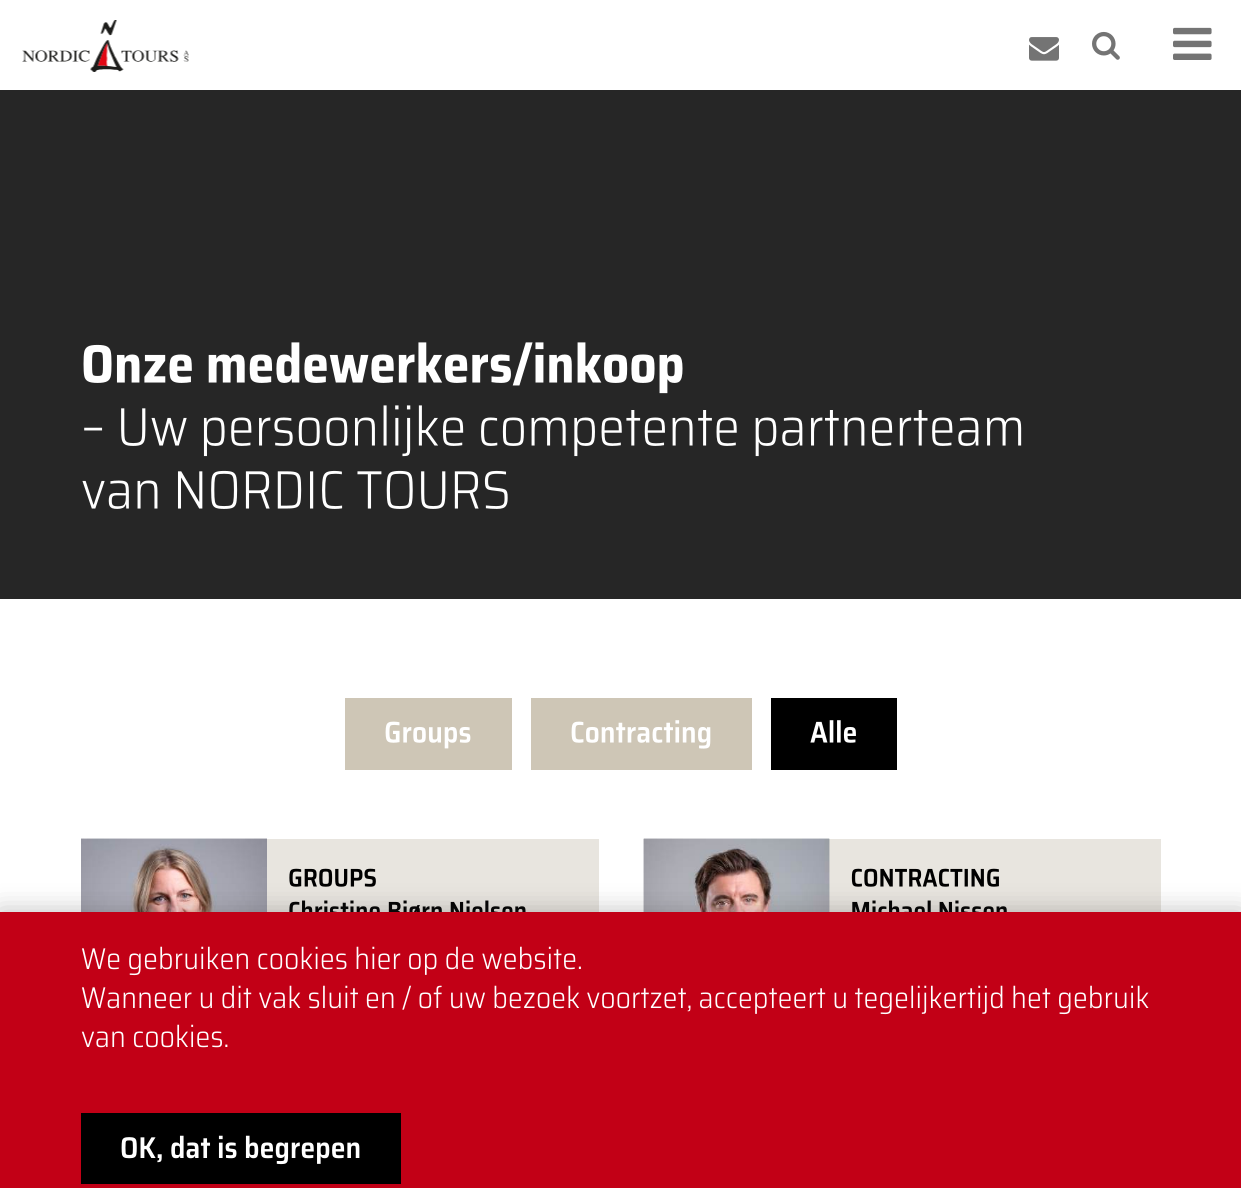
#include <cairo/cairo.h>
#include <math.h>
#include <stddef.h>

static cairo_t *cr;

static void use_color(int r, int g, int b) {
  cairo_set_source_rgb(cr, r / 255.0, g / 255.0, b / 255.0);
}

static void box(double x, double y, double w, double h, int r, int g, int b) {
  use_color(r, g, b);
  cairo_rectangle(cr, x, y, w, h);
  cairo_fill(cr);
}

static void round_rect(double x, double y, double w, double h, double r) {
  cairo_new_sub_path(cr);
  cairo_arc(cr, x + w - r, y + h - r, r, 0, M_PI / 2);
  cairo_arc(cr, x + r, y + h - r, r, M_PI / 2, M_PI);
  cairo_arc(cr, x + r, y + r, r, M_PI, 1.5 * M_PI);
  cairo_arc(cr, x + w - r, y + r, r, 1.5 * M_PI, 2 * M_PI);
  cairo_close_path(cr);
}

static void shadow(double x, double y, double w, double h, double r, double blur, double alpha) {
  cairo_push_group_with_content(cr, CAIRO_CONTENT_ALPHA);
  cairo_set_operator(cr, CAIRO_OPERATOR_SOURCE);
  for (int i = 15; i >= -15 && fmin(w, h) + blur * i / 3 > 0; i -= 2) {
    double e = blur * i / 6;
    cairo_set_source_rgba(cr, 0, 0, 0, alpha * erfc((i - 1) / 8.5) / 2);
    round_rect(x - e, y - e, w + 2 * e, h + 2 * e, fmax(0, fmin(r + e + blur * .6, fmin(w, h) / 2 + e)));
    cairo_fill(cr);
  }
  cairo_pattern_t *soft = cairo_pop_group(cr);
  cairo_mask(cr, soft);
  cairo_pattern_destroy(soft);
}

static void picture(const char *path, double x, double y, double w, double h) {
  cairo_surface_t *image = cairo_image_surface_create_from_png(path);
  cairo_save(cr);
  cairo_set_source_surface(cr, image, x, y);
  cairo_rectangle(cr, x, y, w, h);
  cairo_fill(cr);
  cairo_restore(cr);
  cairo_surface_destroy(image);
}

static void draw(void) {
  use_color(255, 255, 255);
  cairo_paint(cr);
  picture("img_01.png", 22, 20, 167, 52);
  picture("img_02.png", 1029, 37, 30, 24);
  picture("img_03.png", 1092, 31, 28, 29);
  picture("img_04.png", 1173, 27, 39, 33);
  box(0, 90, 1241, 509, 38, 38, 38);
  picture("img_05.png", 83, 342, 600, 52);
  picture("img_06.png", 84, 405, 938, 52);
  picture("img_07.png", 82, 470, 426, 39);
  box(345, 698, 167, 72, 206, 198, 182);
  picture("img_08.png", 385, 721, 86, 28);
  box(531, 698, 221, 72, 206, 198, 182);
  picture("img_09.png", 571, 720, 140, 29);
  box(771, 698, 126, 72, 0, 0, 0);
  picture("img_10.png", 810, 720, 46, 23);
  box(267, 839, 332, 73, 232, 229, 223);
  picture("img_11.png", 81, 838, 186, 74);
  picture("img_12.png", 81, 838, 186, 1);
  picture("img_13.png", 289, 868, 87, 19);
  picture("img_14.png", 289, 900, 91, 12);
  picture("img_15.png", 388, 900, 138, 12);
  box(829, 839, 332, 73, 232, 229, 223);
  picture("img_16.png", 643, 838, 187, 74);
  picture("img_17.png", 643, 838, 187, 74);
  picture("img_18.png", 851, 868, 148, 19);
  picture("img_19.png", 852, 900, 155, 12);
  use_color(50, 50, 50);
  shadow(0, 912, 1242, 276, 0, 13.5, 0.32);
  box(0, 912, 1241, 276, 194, 0, 22);
  picture("img_20.png", 82, 946, 499, 30);
  picture("img_21.png", 82, 985, 1067, 30);
  picture("img_22.png", 81, 1024, 147, 24);
  box(81, 1113, 320, 71, 0, 0, 0);
  picture("img_23.png", 121, 1135, 239, 30);
}

int main(void) {
  cairo_surface_t *surface = cairo_image_surface_create(CAIRO_FORMAT_RGB24, 1241, 1188);
  cr = cairo_create(surface);
  cairo_font_options_t *options = cairo_font_options_create();
  cairo_font_options_set_hint_metrics(options, CAIRO_HINT_METRICS_OFF);
  cairo_font_options_set_hint_style(options, CAIRO_HINT_STYLE_NONE);
  cairo_set_font_options(cr, options);
  cairo_set_miter_limit(cr, 4);
  draw();
  cairo_surface_write_to_png(surface, "out.png");
  cairo_font_options_destroy(options);
  cairo_destroy(cr);
  cairo_surface_destroy(surface);
  return 0;
}
